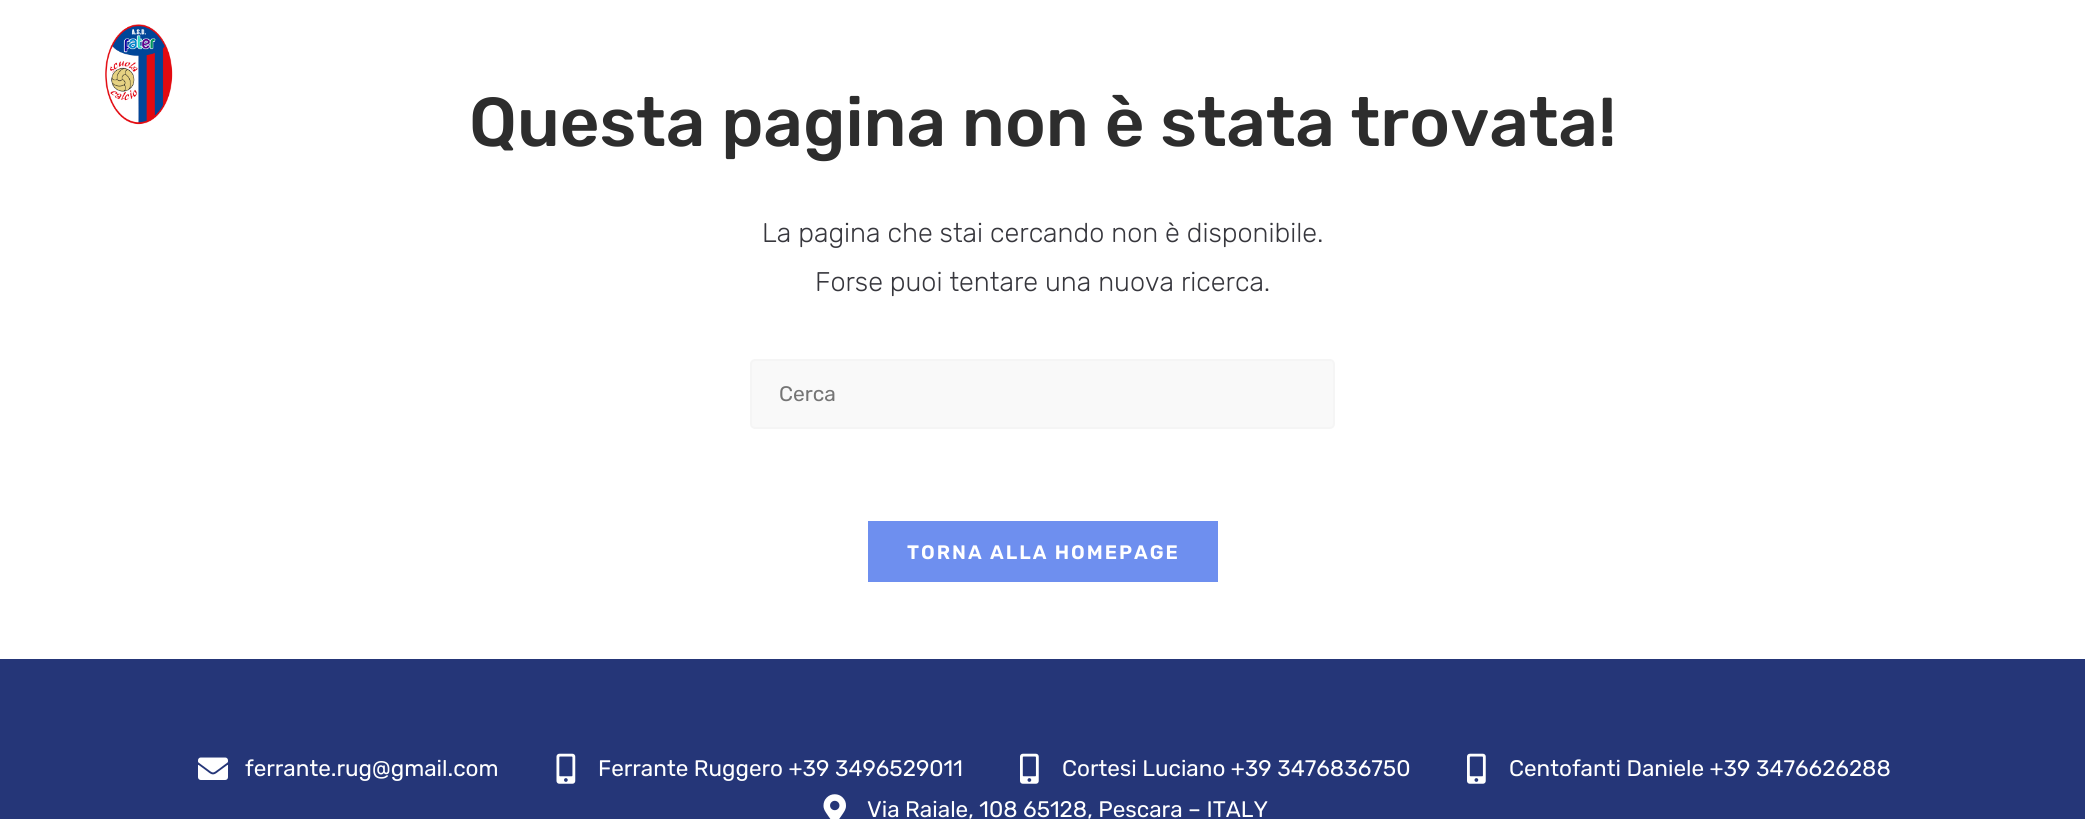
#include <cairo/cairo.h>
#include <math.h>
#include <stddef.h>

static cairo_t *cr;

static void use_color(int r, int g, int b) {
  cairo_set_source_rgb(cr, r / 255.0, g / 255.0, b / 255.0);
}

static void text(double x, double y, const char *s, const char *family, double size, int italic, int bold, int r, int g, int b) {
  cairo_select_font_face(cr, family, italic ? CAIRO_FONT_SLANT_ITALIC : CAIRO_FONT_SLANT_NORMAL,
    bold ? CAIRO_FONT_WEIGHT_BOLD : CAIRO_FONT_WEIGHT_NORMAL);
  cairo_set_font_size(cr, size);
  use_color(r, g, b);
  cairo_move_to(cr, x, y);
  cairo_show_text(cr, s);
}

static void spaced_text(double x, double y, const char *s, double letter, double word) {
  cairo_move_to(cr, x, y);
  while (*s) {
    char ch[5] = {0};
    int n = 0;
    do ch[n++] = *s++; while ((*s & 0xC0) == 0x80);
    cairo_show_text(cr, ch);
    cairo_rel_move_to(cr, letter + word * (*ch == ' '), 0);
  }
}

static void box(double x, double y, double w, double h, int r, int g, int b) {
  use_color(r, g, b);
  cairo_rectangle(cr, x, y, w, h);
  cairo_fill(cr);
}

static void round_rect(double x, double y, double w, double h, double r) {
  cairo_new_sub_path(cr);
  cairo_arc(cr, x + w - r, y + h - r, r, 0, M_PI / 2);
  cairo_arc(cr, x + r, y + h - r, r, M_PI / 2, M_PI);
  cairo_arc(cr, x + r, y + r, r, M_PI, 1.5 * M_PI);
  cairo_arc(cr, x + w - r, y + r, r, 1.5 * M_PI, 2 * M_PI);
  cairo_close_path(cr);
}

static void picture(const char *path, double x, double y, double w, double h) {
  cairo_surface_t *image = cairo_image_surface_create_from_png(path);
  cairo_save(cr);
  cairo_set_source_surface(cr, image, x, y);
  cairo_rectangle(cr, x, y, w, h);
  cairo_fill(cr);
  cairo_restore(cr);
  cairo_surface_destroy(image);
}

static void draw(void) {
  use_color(255, 255, 255);
  cairo_paint(cr);
  picture("img_01.png", 105, 24, 68, 101);
  use_color(249, 249, 249);
  round_rect(751, 360, 583, 68, 4);
  cairo_fill_preserve(cr);
  use_color(245, 245, 245);
  cairo_stroke(cr);
  box(868, 521, 350, 61, 110, 143, 239);
  box(0, 659, 2085, 160, 37, 54, 120);
  picture("img_02.png", 198, 757, 30, 23);
  picture("img_03.png", 556, 753, 20, 31);
  picture("img_04.png", 1020, 753, 19, 31);
  picture("img_04.png", 1467, 753, 19, 31);
  picture("img_05.png", 823, 794, 23, 25);
  text(469, 146, "Questa pagina non è stata trovata!", "Rubik Medium", 69, 0, 0, 45, 45, 45);
  text(762, 242, "La pagina che stai cercando non è disponibile.", "Rubik Light", 27, 0, 0, 55, 55, 61);
  text(815, 291, "Forse puoi tentare una nuova ricerca.", "Rubik Light", 27, 0, 0, 55, 55, 61);
  text(779, 401, "Cerca", "Rubik", 21, 0, 0, 117, 117, 117);
  cairo_select_font_face(cr, "Rubik SemiBold", CAIRO_FONT_SLANT_NORMAL, CAIRO_FONT_WEIGHT_NORMAL);
  cairo_set_font_size(cr, 19.5);
  use_color(255, 255, 255);
  spaced_text(907, 559, "TORNA ALLA HOMEPAGE", 2, 0);
  text(245, 776, "ferrante.rug@gmail.com", "Rubik", 22.5, 0, 0, 255, 255, 255);
  text(598, 776, "Ferrante Ruggero +39 3496529011", "Rubik", 22.5, 0, 0, 255, 255, 255);
  text(1062, 776, "Cortesi Luciano +39 3476836750", "Rubik", 22.5, 0, 0, 255, 255, 255);
  text(1509, 776, "Centofanti Daniele +39 3476626288", "Rubik", 22.5, 0, 0, 255, 255, 255);
  text(867, 817, "Via Raiale, 108 65128, Pescara – ITALY", "Rubik", 22.5, 0, 0, 255, 255, 255);
}

int main(void) {
  cairo_surface_t *surface = cairo_image_surface_create(CAIRO_FORMAT_RGB24, 2085, 819);
  cr = cairo_create(surface);
  cairo_font_options_t *options = cairo_font_options_create();
  cairo_font_options_set_hint_metrics(options, CAIRO_HINT_METRICS_OFF);
  cairo_font_options_set_hint_style(options, CAIRO_HINT_STYLE_NONE);
  cairo_set_font_options(cr, options);
  cairo_set_miter_limit(cr, 4);
  draw();
  cairo_surface_write_to_png(surface, "out.png");
  cairo_font_options_destroy(options);
  cairo_destroy(cr);
  cairo_surface_destroy(surface);
  return 0;
}
